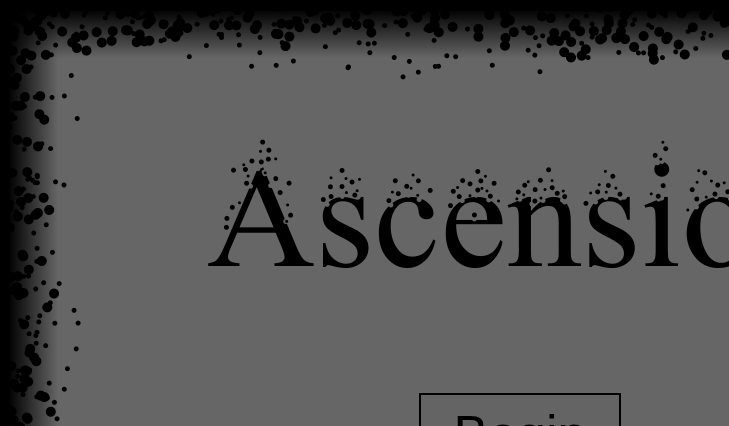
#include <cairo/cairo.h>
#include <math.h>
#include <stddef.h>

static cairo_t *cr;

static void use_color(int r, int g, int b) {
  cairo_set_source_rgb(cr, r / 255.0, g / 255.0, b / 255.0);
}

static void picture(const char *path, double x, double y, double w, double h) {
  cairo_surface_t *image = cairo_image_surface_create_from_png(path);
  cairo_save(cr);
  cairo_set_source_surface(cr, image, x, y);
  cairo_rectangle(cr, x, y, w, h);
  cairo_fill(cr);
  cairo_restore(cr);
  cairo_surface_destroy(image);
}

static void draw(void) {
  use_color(0, 0, 0);
  cairo_paint(cr);
  picture("img_01.png", 10, 11, 719, 415);
}

int main(void) {
  cairo_surface_t *surface = cairo_image_surface_create(CAIRO_FORMAT_RGB24, 729, 426);
  cr = cairo_create(surface);
  cairo_font_options_t *options = cairo_font_options_create();
  cairo_font_options_set_hint_metrics(options, CAIRO_HINT_METRICS_OFF);
  cairo_font_options_set_hint_style(options, CAIRO_HINT_STYLE_NONE);
  cairo_set_font_options(cr, options);
  cairo_set_miter_limit(cr, 4);
  draw();
  cairo_surface_write_to_png(surface, "out.png");
  cairo_font_options_destroy(options);
  cairo_destroy(cr);
  cairo_surface_destroy(surface);
  return 0;
}
